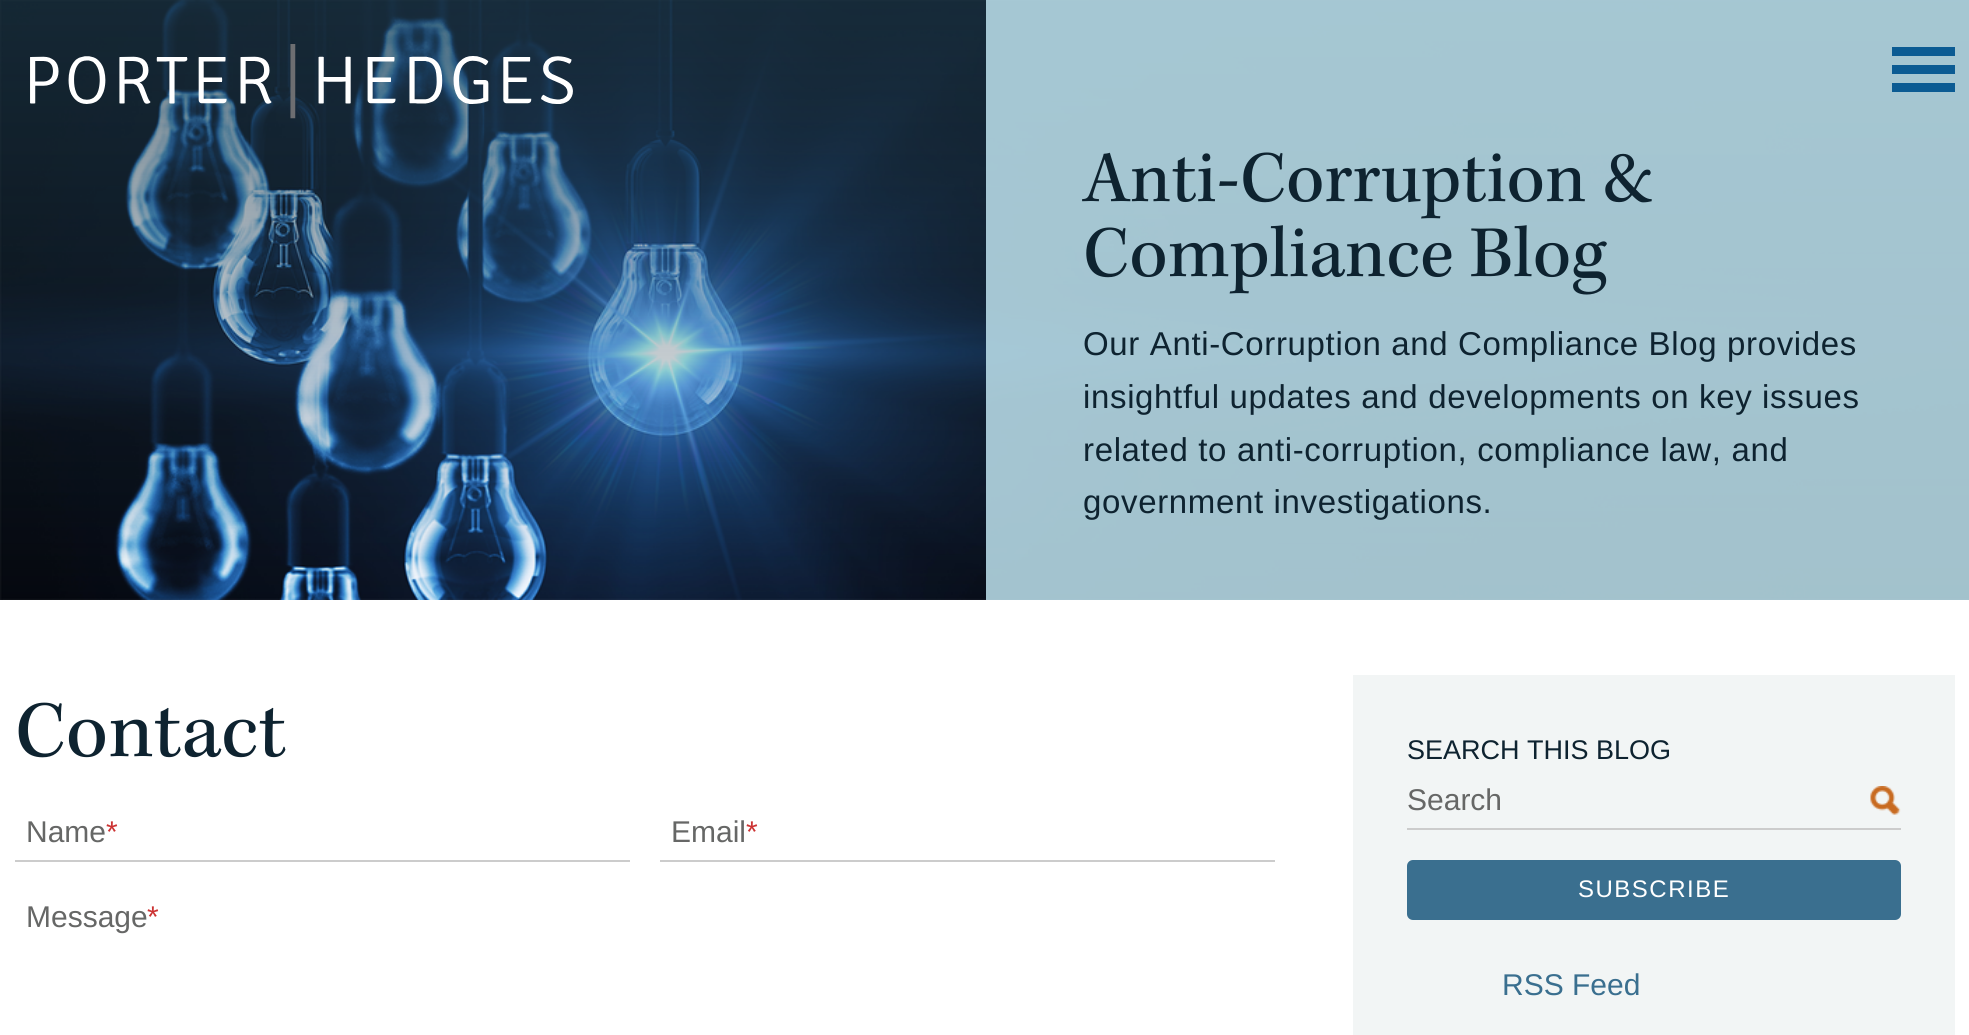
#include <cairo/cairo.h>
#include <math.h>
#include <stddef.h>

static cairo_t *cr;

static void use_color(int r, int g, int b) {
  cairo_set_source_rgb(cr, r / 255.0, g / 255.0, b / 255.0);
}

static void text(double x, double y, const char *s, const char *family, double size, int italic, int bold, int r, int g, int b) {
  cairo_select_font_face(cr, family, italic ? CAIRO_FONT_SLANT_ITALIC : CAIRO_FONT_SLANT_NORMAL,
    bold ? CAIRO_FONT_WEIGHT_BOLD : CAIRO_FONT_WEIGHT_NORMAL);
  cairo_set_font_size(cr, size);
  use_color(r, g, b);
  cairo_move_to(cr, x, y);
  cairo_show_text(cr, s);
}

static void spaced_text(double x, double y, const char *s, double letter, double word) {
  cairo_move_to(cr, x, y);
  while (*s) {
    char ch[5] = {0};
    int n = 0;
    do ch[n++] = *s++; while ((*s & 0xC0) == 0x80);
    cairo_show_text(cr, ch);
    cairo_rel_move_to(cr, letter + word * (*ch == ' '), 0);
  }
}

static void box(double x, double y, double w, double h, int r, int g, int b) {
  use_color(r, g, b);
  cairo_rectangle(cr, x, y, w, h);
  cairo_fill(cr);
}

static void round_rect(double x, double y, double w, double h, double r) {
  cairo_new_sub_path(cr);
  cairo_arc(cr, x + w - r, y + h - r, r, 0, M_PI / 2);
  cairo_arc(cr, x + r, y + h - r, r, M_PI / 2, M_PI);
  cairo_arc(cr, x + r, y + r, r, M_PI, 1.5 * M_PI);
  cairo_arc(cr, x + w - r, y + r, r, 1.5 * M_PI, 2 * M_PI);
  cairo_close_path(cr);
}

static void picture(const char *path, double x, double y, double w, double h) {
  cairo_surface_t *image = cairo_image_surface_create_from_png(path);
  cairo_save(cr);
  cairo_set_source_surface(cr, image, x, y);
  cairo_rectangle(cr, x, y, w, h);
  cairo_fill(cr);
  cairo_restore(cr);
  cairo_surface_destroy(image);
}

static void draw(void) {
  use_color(255, 255, 255);
  cairo_paint(cr);
  picture("img_02.png", 0, 0, 1969, 600);
  picture("img_01.png", 30, 44, 543, 75);
  cairo_set_source_rgba(cr, 0.749, 0.89, 0.933, 0.85);
  cairo_rectangle(cr, 986, 0, 983, 600);
  cairo_fill(cr);
  box(1892, 47, 63, 9, 11, 91, 147);
  box(1892, 65, 63, 9, 11, 91, 147);
  box(1892, 83, 63, 9, 11, 91, 147);
  box(15, 860, 615, 2, 204, 204, 204);
  box(660, 860, 615, 2, 204, 204, 204);
  box(1353, 675, 602, 360, 242, 245, 245);
  box(1407, 828, 494, 2, 204, 204, 204);
  picture("img_03.png", 1870, 786, 31, 29);
  use_color(58, 111, 143);
  round_rect(1407, 860, 494, 60, 6);
  cairo_fill(cr);
  text(1083, 201, "Anti-Corruption &", "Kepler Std", 75, 0, 0, 14, 35, 48);
  text(1083, 276, "Compliance Blog", "Kepler Std", 75, 0, 0, 14, 35, 48);
  cairo_select_font_face(cr, "Liberation Sans", CAIRO_FONT_SLANT_NORMAL, CAIRO_FONT_WEIGHT_NORMAL);
  cairo_set_font_size(cr, 33);
  spaced_text(1083, 355, "Our Anti-Corruption and Compliance Blog provides", 0.65, 0);
  spaced_text(1083, 408, "insightful updates and developments on key issues", 0.65, 0);
  spaced_text(1083, 461, "related to anti-corruption, compliance law, and", 0.65, 0);
  spaced_text(1083, 513, "government investigations.", 0.65, 0);
  text(15, 756, "Contact", "Kepler Std", 82.5, 0, 0, 14, 35, 48);
  text(26, 842, "Name", "Liberation Sans", 30, 0, 0, 102, 103, 102);
  text(106, 842, "*", "Liberation Sans", 30, 0, 0, 204, 51, 51);
  text(671, 842, "Email", "Liberation Sans", 30, 0, 0, 102, 103, 102);
  text(746, 842, "*", "Liberation Sans", 30, 0, 0, 204, 51, 51);
  text(26, 927, "Message", "Liberation Sans", 30, 0, 0, 102, 103, 102);
  text(147, 927, "*", "Liberation Sans", 30, 0, 0, 204, 51, 51);
  text(1407, 759, "SEARCH THIS BLOG", "Liberation Sans", 27, 0, 0, 14, 35, 48);
  text(1407, 810, "Search", "Liberation Sans", 30, 0, 0, 102, 103, 102);
  cairo_set_font_size(cr, 24);
  use_color(255, 255, 255);
  spaced_text(1578, 897, "SUBSCRIBE", 1.5, 0);
  text(1502, 995, "RSS Feed", "Liberation Sans", 30, 0, 0, 58, 111, 143);
}

int main(void) {
  cairo_surface_t *surface = cairo_image_surface_create(CAIRO_FORMAT_RGB24, 1969, 1035);
  cr = cairo_create(surface);
  cairo_font_options_t *options = cairo_font_options_create();
  cairo_font_options_set_hint_metrics(options, CAIRO_HINT_METRICS_OFF);
  cairo_font_options_set_hint_style(options, CAIRO_HINT_STYLE_NONE);
  cairo_set_font_options(cr, options);
  cairo_set_miter_limit(cr, 4);
  draw();
  cairo_surface_write_to_png(surface, "out.png");
  cairo_font_options_destroy(options);
  cairo_destroy(cr);
  cairo_surface_destroy(surface);
  return 0;
}
